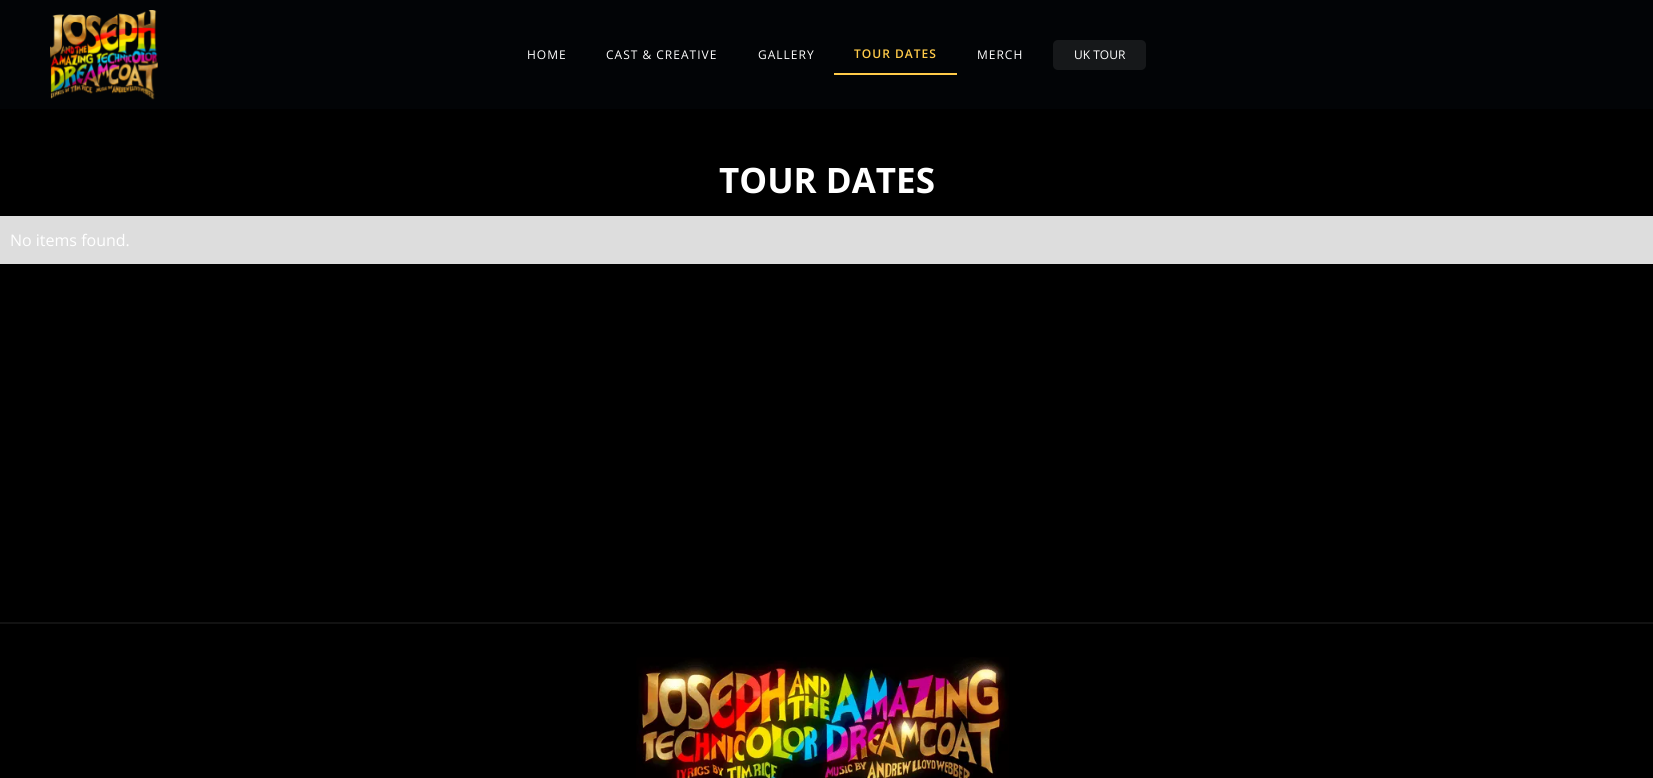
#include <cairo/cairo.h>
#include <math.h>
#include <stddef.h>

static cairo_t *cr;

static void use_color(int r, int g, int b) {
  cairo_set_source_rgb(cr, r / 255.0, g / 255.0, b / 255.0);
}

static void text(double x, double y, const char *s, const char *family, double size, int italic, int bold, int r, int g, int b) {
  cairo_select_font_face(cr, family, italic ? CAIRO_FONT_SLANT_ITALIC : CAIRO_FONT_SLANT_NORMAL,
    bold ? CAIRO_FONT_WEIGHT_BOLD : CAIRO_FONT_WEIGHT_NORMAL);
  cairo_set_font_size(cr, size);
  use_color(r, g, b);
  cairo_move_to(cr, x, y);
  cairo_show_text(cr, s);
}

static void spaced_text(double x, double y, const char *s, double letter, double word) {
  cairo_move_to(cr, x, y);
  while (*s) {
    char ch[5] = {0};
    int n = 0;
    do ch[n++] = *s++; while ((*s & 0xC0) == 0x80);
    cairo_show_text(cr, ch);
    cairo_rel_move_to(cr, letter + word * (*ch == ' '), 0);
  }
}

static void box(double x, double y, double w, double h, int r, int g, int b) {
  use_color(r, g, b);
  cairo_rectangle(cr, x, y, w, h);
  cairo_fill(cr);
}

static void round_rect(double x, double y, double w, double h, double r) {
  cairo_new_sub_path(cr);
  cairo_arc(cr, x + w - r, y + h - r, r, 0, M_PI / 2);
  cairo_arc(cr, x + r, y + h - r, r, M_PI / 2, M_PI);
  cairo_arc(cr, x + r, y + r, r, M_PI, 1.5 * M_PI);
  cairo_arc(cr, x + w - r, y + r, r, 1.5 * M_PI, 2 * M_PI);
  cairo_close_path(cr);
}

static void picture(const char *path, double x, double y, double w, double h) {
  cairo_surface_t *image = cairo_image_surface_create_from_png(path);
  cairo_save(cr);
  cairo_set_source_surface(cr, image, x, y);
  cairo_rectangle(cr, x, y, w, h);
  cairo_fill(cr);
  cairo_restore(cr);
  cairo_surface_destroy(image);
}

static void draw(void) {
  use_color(0, 0, 0);
  cairo_paint(cr);
  box(0, 0, 1653, 109, 2, 4, 6);
  picture("img_01.png", 50, 10, 108, 90);
  box(834, 73, 123, 2, 255, 203, 73);
  use_color(22, 24, 26);
  round_rect(1053, 40, 93, 30, 5);
  cairo_fill(cr);
  box(0, 216, 1653, 48, 221, 221, 221);
  box(0, 622, 1653, 2, 18, 18, 18);
  picture("img_02.png", 636, 657, 373, 121);
  cairo_select_font_face(cr, "Open Sans", CAIRO_FONT_SLANT_NORMAL, CAIRO_FONT_WEIGHT_NORMAL);
  cairo_set_font_size(cr, 12);
  use_color(255, 255, 255);
  spaced_text(527, 59, "HOME", 1, 0);
  spaced_text(606, 59, "CAST & CREATIVE", 1, 0);
  spaced_text(758, 59, "GALLERY", 1, 0);
  cairo_select_font_face(cr, "Open Sans SemiBold", CAIRO_FONT_SLANT_NORMAL, CAIRO_FONT_WEIGHT_NORMAL);
  use_color(255, 203, 73);
  spaced_text(854, 58, "TOUR DATES", 1, 0);
  cairo_select_font_face(cr, "Open Sans", CAIRO_FONT_SLANT_NORMAL, CAIRO_FONT_WEIGHT_NORMAL);
  use_color(255, 255, 255);
  spaced_text(977, 59, "MERCH", 1, 0);
  text(1074, 59, "UK TOUR", "Open Sans", 12, 0, 0, 255, 255, 255);
  text(719, 193, "TOUR DATES", "Open Sans", 35, 0, 1, 255, 255, 255);
  text(10, 246, "No items found.", "Open Sans", 16, 0, 0, 255, 255, 255);
}

int main(void) {
  cairo_surface_t *surface = cairo_image_surface_create(CAIRO_FORMAT_RGB24, 1653, 778);
  cr = cairo_create(surface);
  cairo_font_options_t *options = cairo_font_options_create();
  cairo_font_options_set_hint_metrics(options, CAIRO_HINT_METRICS_OFF);
  cairo_font_options_set_hint_style(options, CAIRO_HINT_STYLE_NONE);
  cairo_set_font_options(cr, options);
  cairo_set_miter_limit(cr, 4);
  draw();
  cairo_surface_write_to_png(surface, "out.png");
  cairo_font_options_destroy(options);
  cairo_destroy(cr);
  cairo_surface_destroy(surface);
  return 0;
}
